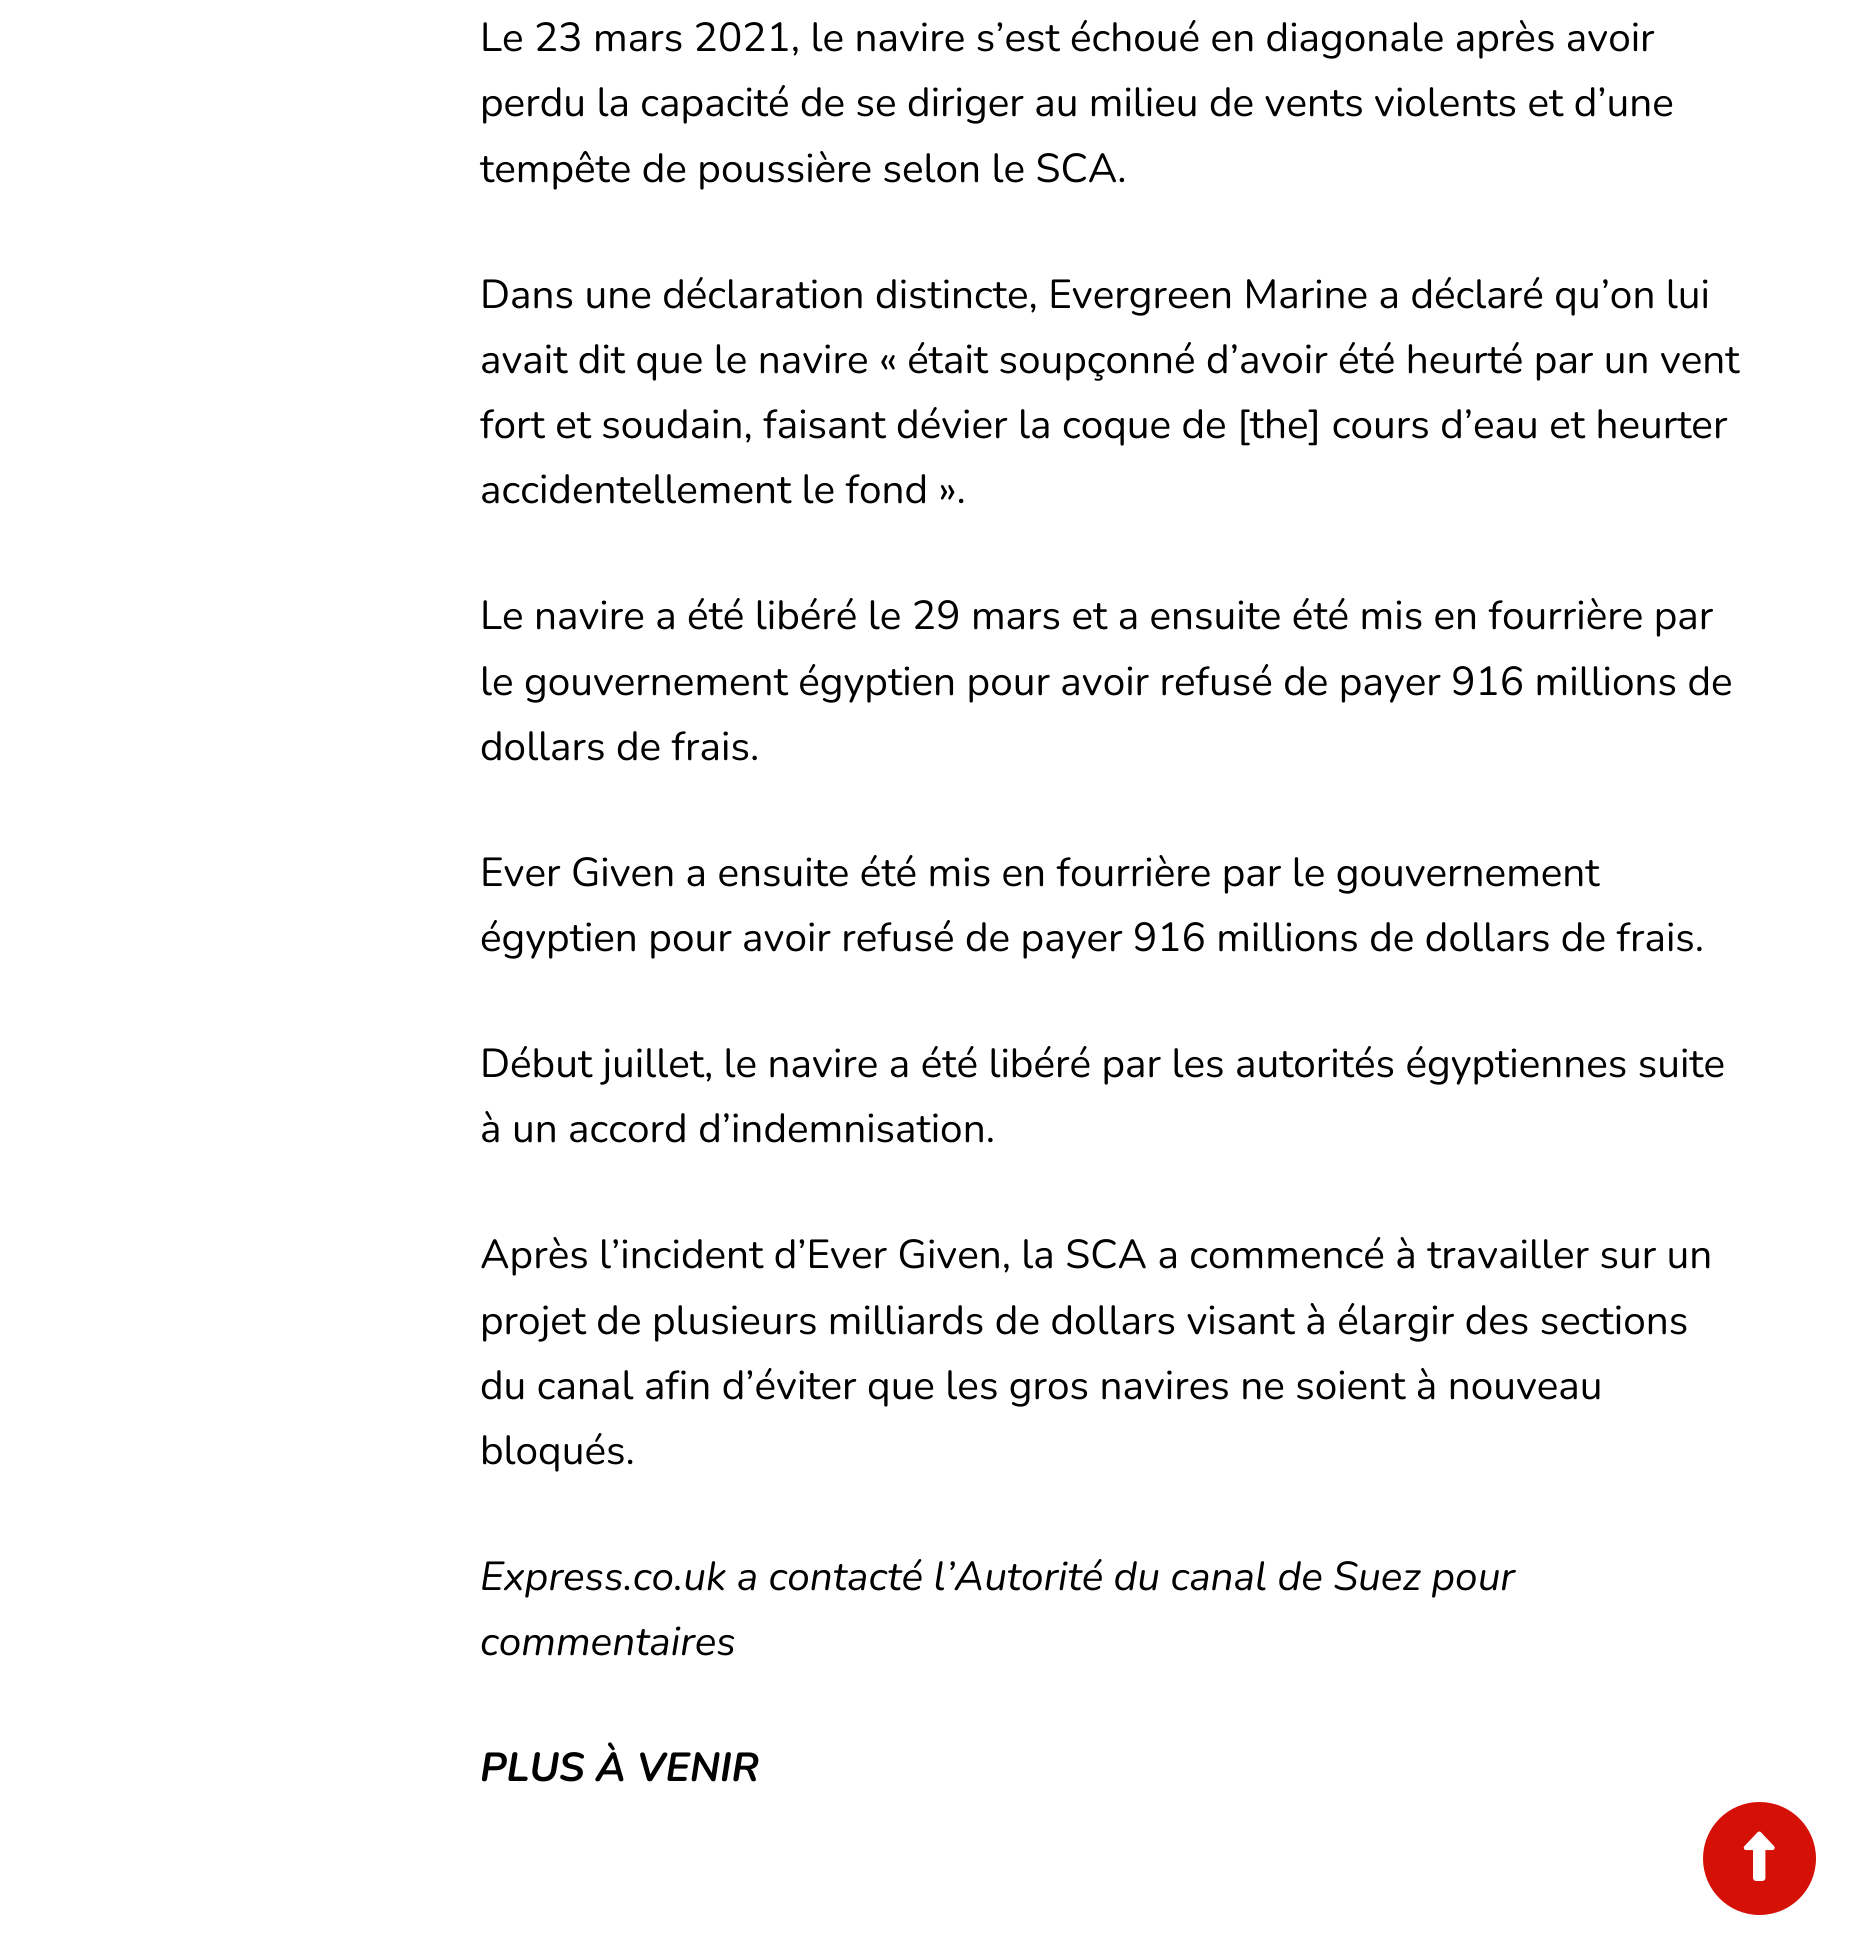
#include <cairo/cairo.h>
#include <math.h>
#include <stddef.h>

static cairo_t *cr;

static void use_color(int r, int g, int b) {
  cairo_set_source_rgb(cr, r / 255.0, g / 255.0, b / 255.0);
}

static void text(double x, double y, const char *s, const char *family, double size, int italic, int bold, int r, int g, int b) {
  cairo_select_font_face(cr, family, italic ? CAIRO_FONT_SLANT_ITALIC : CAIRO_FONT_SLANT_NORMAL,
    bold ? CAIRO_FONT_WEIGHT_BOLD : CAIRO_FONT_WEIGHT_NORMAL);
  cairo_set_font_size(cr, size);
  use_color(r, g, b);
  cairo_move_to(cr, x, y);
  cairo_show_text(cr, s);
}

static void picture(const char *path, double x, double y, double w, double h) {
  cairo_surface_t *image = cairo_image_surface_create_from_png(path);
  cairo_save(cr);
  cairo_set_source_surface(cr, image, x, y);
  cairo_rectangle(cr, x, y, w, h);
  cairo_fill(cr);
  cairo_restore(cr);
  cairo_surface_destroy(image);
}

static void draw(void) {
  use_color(255, 255, 255);
  cairo_paint(cr);
  use_color(213, 16, 7);
  cairo_arc(cr, 1759.5, 1858.5, 56.5, 0, 2 * M_PI);
  cairo_fill(cr);
  picture("img_01.png", 1743, 1831, 32, 50);
  text(480, 51, "Le 23 mars 2021, le navire s’est échoué en diagonale après avoir", "Nunito", 40.5, 0, 0, 0, 0, 0);
  text(480, 116, "perdu la capacité de se diriger au milieu de vents violents et d’une", "Nunito", 40.5, 0, 0, 0, 0, 0);
  text(480, 182, "tempête de poussière selon le SCA.", "Nunito", 40.5, 0, 0, 0, 0, 0);
  text(480, 308, "Dans une déclaration distincte, Evergreen Marine a déclaré qu’on lui", "Nunito", 40.5, 0, 0, 0, 0, 0);
  text(480, 373, "avait dit que le navire « était soupçonné d’avoir été heurté par un vent", "Nunito", 40.5, 0, 0, 0, 0, 0);
  text(480, 438, "fort et soudain, faisant dévier la coque de [the] cours d’eau et heurter", "Nunito", 40.5, 0, 0, 0, 0, 0);
  text(480, 503, "accidentellement le fond ».", "Nunito", 40.5, 0, 0, 0, 0, 0);
  text(480, 629, "Le navire a été libéré le 29 mars et a ensuite été mis en fourrière par", "Nunito", 40.5, 0, 0, 0, 0, 0);
  text(480, 695, "le gouvernement égyptien pour avoir refusé de payer 916 millions de", "Nunito", 40.5, 0, 0, 0, 0, 0);
  text(480, 760, "dollars de frais.", "Nunito", 40.5, 0, 0, 0, 0, 0);
  text(480, 886, "Ever Given a ensuite été mis en fourrière par le gouvernement", "Nunito", 40.5, 0, 0, 0, 0, 0);
  text(480, 951, "égyptien pour avoir refusé de payer 916 millions de dollars de frais.", "Nunito", 40.5, 0, 0, 0, 0, 0);
  text(480, 1077, "Début juillet, le navire a été libéré par les autorités égyptiennes suite", "Nunito", 40.5, 0, 0, 0, 0, 0);
  text(480, 1142, "à un accord d’indemnisation.", "Nunito", 40.5, 0, 0, 0, 0, 0);
  text(480, 1268, "Après l’incident d’Ever Given, la SCA a commencé à travailler sur un", "Nunito", 40.5, 0, 0, 0, 0, 0);
  text(480, 1334, "projet de plusieurs milliards de dollars visant à élargir des sections", "Nunito", 40.5, 0, 0, 0, 0, 0);
  text(480, 1399, "du canal afin d’éviter que les gros navires ne soient à nouveau", "Nunito", 40.5, 0, 0, 0, 0, 0);
  text(480, 1464, "bloqués.", "Nunito", 40.5, 0, 0, 0, 0, 0);
  text(480, 1590, "Express.co.uk a contacté l’Autorité du canal de Suez pour", "Nunito", 40.5, 1, 0, 0, 0, 0);
  text(480, 1655, "commentaires", "Nunito", 40.5, 1, 0, 0, 0, 0);
  text(480, 1781, "PLUS À VENIR", "Nunito", 40.5, 1, 1, 0, 0, 0);
}

int main(void) {
  cairo_surface_t *surface = cairo_image_surface_create(CAIRO_FORMAT_RGB24, 1860, 1958);
  cr = cairo_create(surface);
  cairo_font_options_t *options = cairo_font_options_create();
  cairo_font_options_set_hint_metrics(options, CAIRO_HINT_METRICS_OFF);
  cairo_font_options_set_hint_style(options, CAIRO_HINT_STYLE_NONE);
  cairo_set_font_options(cr, options);
  cairo_set_miter_limit(cr, 4);
  draw();
  cairo_surface_write_to_png(surface, "out.png");
  cairo_font_options_destroy(options);
  cairo_destroy(cr);
  cairo_surface_destroy(surface);
  return 0;
}
